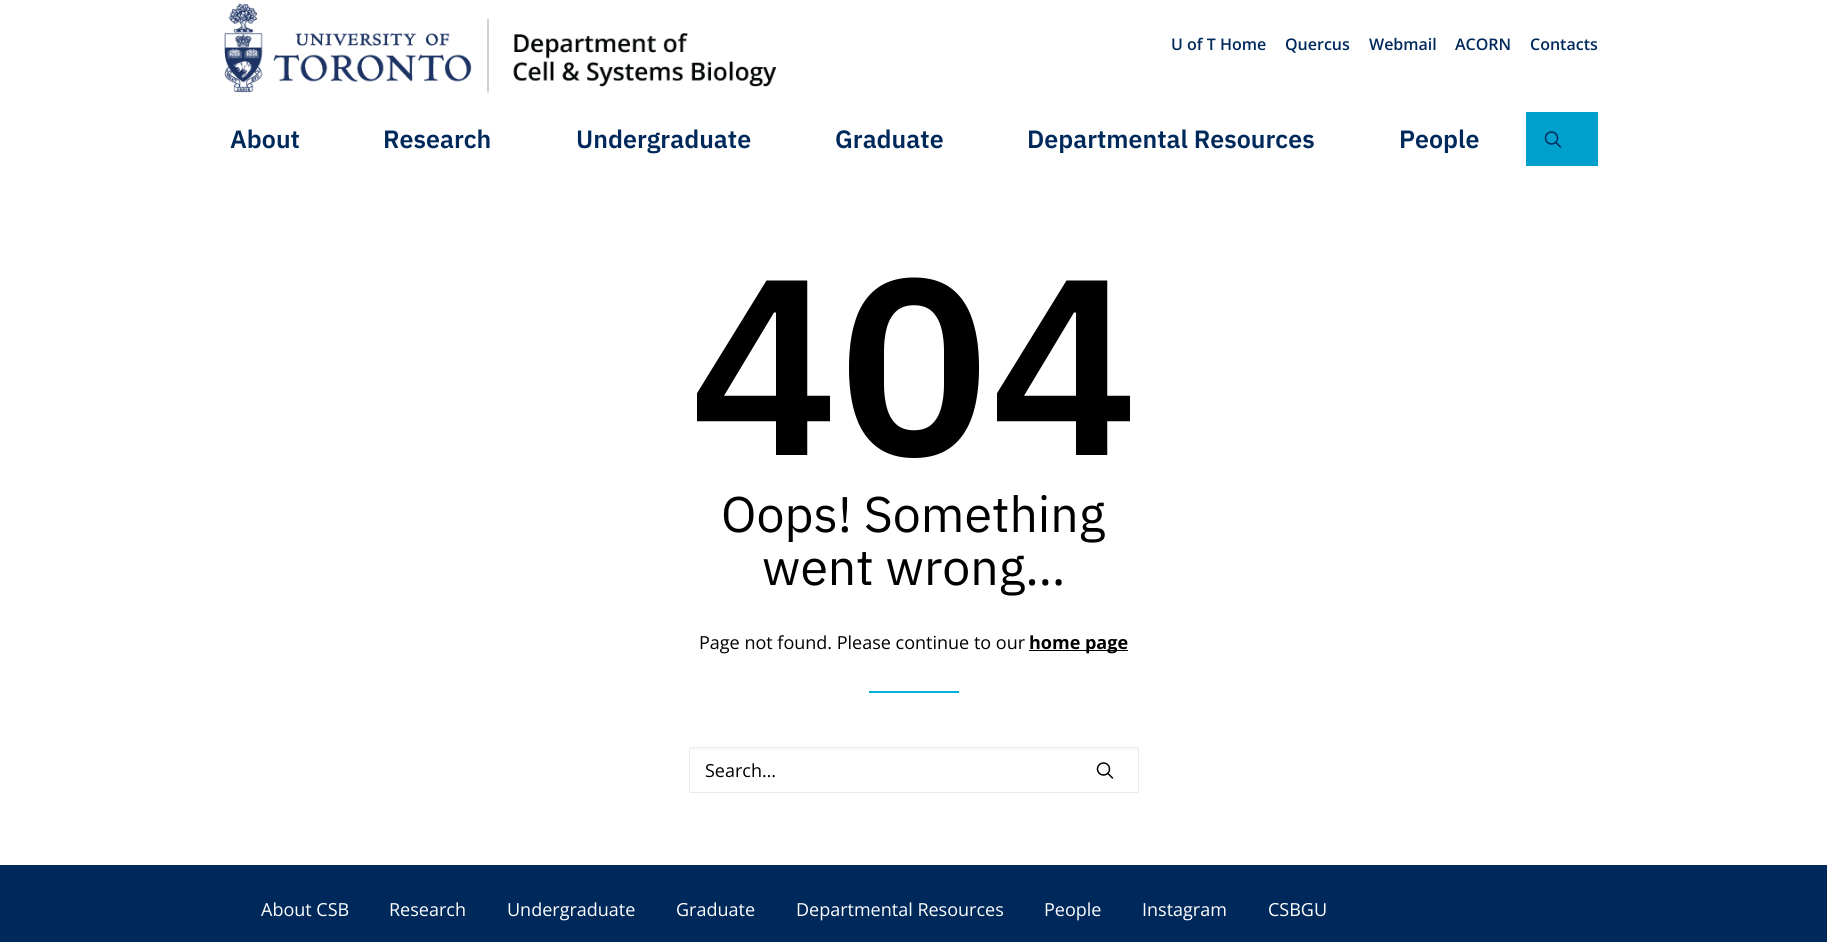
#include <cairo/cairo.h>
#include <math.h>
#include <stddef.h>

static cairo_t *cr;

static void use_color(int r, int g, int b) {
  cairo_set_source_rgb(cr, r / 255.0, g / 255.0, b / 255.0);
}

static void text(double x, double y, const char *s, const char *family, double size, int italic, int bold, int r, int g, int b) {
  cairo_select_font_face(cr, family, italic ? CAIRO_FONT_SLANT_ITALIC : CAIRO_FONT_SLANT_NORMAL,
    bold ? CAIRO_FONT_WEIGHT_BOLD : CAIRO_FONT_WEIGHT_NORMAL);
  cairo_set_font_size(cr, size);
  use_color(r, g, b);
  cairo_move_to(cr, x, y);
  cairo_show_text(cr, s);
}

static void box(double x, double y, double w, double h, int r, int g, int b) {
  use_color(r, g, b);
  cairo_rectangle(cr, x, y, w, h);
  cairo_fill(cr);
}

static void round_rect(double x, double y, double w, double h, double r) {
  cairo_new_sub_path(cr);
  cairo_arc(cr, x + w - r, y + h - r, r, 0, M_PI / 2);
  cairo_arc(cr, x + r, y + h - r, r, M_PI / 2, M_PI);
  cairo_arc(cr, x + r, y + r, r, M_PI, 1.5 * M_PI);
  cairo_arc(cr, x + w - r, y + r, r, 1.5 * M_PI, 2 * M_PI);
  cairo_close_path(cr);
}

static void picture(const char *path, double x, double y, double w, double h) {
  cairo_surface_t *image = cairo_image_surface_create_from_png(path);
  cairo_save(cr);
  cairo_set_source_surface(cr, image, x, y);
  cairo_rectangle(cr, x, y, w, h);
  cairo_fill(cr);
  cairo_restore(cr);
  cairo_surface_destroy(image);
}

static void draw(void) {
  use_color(255, 255, 255);
  cairo_paint(cr);
  picture("img_01.png", 224, 3, 552, 90);
  box(1526, 112, 72, 54, 0, 160, 204);
  picture("img_02.png", 1544, 131, 18, 17);
  box(1029, 650, 99, 1, 0, 0, 0);
  box(869, 691, 90, 2, 0, 177, 219);
  use_color(249, 249, 249);
  cairo_new_path(cr);
  cairo_move_to(cr, 691, 750);
  cairo_line_to(cr, 1137, 750);
  cairo_curve_to(cr, 1138, 750, 1138, 750, 1138, 751);
  cairo_line_to(cr, 1138, 748);
  cairo_line_to(cr, 1137, 748);
  cairo_line_to(cr, 691, 748);
  cairo_curve_to(cr, 690, 748, 690, 750, 690, 751);
  cairo_curve_to(cr, 690, 750, 690, 750, 691, 750);
  cairo_close_path(cr);
  cairo_fill(cr);
  round_rect(689.5, 747.5, 449, 45, 1.5);
  use_color(234, 234, 234);
  cairo_set_line_width(cr, 1);
  cairo_stroke(cr);
  picture("img_03.png", 1096, 762, 18, 17);
  box(0, 865, 1827, 77, 0, 41, 91);
  text(1171, 50, "U of T Home", "Open Sans SemiBold", 16, 0, 0, 0, 41, 91);
  text(1285, 50, "Quercus", "Open Sans SemiBold", 16, 0, 0, 0, 41, 91);
  text(1369, 50, "Webmail", "Open Sans SemiBold", 16, 0, 0, 0, 41, 91);
  text(1455, 50, "ACORN", "Open Sans SemiBold", 16, 0, 0, 0, 41, 91);
  text(1530, 50, "Contacts", "Open Sans SemiBold", 16, 0, 0, 0, 41, 91);
  text(230, 148, "About", "IBM Plex Sans SemiBold", 25, 0, 0, 0, 41, 91);
  text(383, 148, "Research", "IBM Plex Sans SemiBold", 25, 0, 0, 0, 41, 91);
  text(576, 148, "Undergraduate", "IBM Plex Sans SemiBold", 25, 0, 0, 0, 41, 91);
  text(835, 148, "Graduate", "IBM Plex Sans SemiBold", 25, 0, 0, 0, 41, 91);
  text(1027, 148, "Departmental Resources", "IBM Plex Sans SemiBold", 25, 0, 0, 0, 41, 91);
  text(1399, 148, "People", "IBM Plex Sans SemiBold", 25, 0, 0, 0, 41, 91);
  text(689, 455, "404", "IBM Plex Sans SemiBold", 250, 0, 0, 0, 0, 0);
  text(721, 532, "Oops! Something", "IBM Plex Sans", 50, 0, 0, 0, 0, 0);
  text(762, 585, "went wrong…", "IBM Plex Sans", 50, 0, 0, 0, 0, 0);
  text(699, 649, "Page not found. Please continue to our", "Open Sans", 18, 0, 0, 0, 0, 0);
  text(1029, 649, "home page", "Open Sans", 18, 0, 1, 0, 0, 0);
  text(705, 777, "Search…", "Open Sans", 18, 0, 0, 0, 0, 0);
  text(261, 916, "About CSB", "Open Sans", 18, 0, 0, 255, 255, 255);
  text(389, 916, "Research", "Open Sans", 18, 0, 0, 255, 255, 255);
  text(507, 916, "Undergraduate", "Open Sans", 18, 0, 0, 255, 255, 255);
  text(676, 916, "Graduate", "Open Sans", 18, 0, 0, 255, 255, 255);
  text(796, 916, "Departmental Resources", "Open Sans", 18, 0, 0, 255, 255, 255);
  text(1044, 916, "People", "Open Sans", 18, 0, 0, 255, 255, 255);
  text(1142, 916, "Instagram", "Open Sans", 18, 0, 0, 255, 255, 255);
  text(1268, 916, "CSBGU", "Open Sans", 18, 0, 0, 255, 255, 255);
}

int main(void) {
  cairo_surface_t *surface = cairo_image_surface_create(CAIRO_FORMAT_RGB24, 1827, 942);
  cr = cairo_create(surface);
  cairo_font_options_t *options = cairo_font_options_create();
  cairo_font_options_set_hint_metrics(options, CAIRO_HINT_METRICS_OFF);
  cairo_font_options_set_hint_style(options, CAIRO_HINT_STYLE_NONE);
  cairo_set_font_options(cr, options);
  cairo_set_miter_limit(cr, 4);
  draw();
  cairo_surface_write_to_png(surface, "out.png");
  cairo_font_options_destroy(options);
  cairo_destroy(cr);
  cairo_surface_destroy(surface);
  return 0;
}
